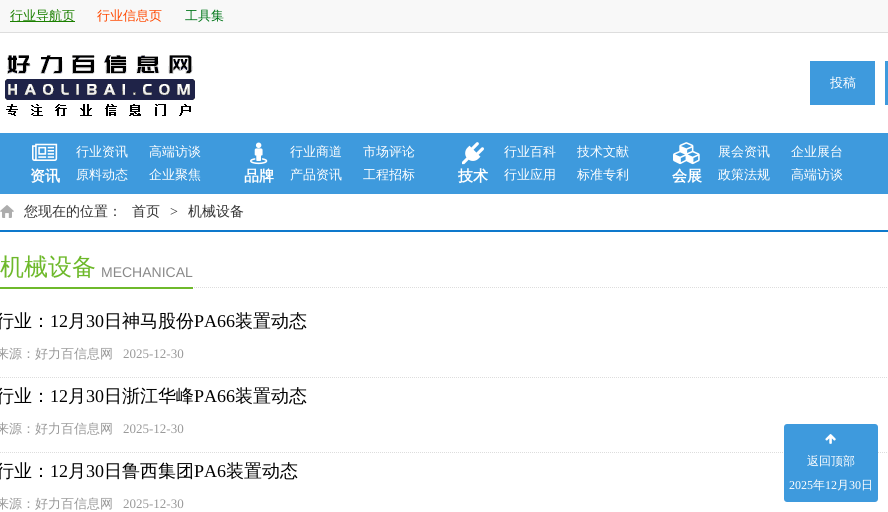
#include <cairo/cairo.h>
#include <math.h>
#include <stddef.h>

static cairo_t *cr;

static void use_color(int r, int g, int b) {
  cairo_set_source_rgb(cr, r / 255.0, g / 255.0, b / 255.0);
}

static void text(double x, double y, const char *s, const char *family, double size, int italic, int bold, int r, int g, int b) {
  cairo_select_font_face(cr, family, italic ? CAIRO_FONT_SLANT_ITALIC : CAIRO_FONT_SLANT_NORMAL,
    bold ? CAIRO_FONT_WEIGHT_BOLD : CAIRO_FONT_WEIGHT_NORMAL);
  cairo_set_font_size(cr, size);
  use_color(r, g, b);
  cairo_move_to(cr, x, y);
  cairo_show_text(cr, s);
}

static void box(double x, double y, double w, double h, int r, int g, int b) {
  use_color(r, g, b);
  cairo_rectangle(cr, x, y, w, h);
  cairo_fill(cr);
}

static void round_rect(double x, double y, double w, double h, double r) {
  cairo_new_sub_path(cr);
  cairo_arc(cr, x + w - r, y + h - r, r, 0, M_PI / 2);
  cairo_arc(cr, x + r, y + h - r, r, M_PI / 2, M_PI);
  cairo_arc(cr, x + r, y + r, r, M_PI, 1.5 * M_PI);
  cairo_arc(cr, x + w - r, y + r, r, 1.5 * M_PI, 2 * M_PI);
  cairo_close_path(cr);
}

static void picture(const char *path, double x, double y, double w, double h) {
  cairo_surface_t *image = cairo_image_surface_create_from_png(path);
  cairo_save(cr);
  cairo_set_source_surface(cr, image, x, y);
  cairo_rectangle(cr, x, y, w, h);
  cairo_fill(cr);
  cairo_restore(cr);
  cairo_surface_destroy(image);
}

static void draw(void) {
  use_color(255, 255, 255);
  cairo_paint(cr);
  box(0, 0, 888, 32, 248, 248, 248);
  box(0, 32, 888, 1, 221, 221, 221);
  box(10, 21, 65, 1, 27, 128, 0);
  picture("img_01.png", 5, 55, 190, 61);
  box(810, 61, 65, 44, 62, 154, 221);
  box(885, 61, 3, 44, 62, 154, 221);
  box(0, 133, 888, 61, 62, 154, 221);
  picture("img_02.png", 32, 143, 26, 18);
  picture("img_03.png", 250, 142, 18, 23);
  picture("img_04.png", 462, 142, 22, 23);
  picture("img_05.png", 673, 142, 27, 23);
  box(0, 230, 888, 2, 14, 121, 204);
  picture("img_06.png", 0, 205, 14, 13);
  cairo_new_path(cr);
  cairo_move_to(cr, 0, 287.5);
  cairo_line_to(cr, 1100, 287.5);
  use_color(221, 221, 221);
  cairo_set_line_width(cr, 1);
  cairo_set_dash(cr, (double[]){1, 1}, 2, 0);
  cairo_stroke(cr);
  box(0, 287, 193, 2, 110, 185, 43);
  cairo_new_path(cr);
  cairo_move_to(cr, 0, 377.5);
  cairo_line_to(cr, 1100, 377.5);
  use_color(221, 221, 221);
  cairo_stroke(cr);
  cairo_new_path(cr);
  cairo_move_to(cr, 0, 452.5);
  cairo_line_to(cr, 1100, 452.5);
  cairo_stroke(cr);
  use_color(62, 154, 221);
  round_rect(784, 424, 94, 78, 3);
  cairo_fill(cr);
  picture("img_07.png", 825, 434, 11, 10);
  text(10, 20, "行业导航页", "WenQuanYi Zen Hei Medium", 13, 0, 0, 27, 128, 0);
  text(97, 20, "行业信息页", "WenQuanYi Zen Hei Medium", 13, 0, 0, 255, 72, 0);
  text(185, 20, "工具集", "WenQuanYi Zen Hei Medium", 13, 0, 0, 1, 118, 25);
  text(830, 87, "投稿", "WenQuanYi Zen Hei Medium", 13, 0, 0, 255, 255, 255);
  text(30, 181, "资讯", "WenQuanYi Zen Hei", 15, 0, 1, 255, 255, 255);
  text(76, 156, "行业资讯", "WenQuanYi Zen Hei Medium", 13, 0, 0, 255, 255, 255);
  text(149, 156, "高端访谈", "WenQuanYi Zen Hei Medium", 13, 0, 0, 255, 255, 255);
  text(76, 179, "原料动态", "WenQuanYi Zen Hei Medium", 13, 0, 0, 255, 255, 255);
  text(149, 179, "企业聚焦", "WenQuanYi Zen Hei Medium", 13, 0, 0, 255, 255, 255);
  text(244, 181, "品牌", "WenQuanYi Zen Hei", 15, 0, 1, 255, 255, 255);
  text(290, 156, "行业商道", "WenQuanYi Zen Hei Medium", 13, 0, 0, 255, 255, 255);
  text(363, 156, "市场评论", "WenQuanYi Zen Hei Medium", 13, 0, 0, 255, 255, 255);
  text(290, 179, "产品资讯", "WenQuanYi Zen Hei Medium", 13, 0, 0, 255, 255, 255);
  text(363, 179, "工程招标", "WenQuanYi Zen Hei Medium", 13, 0, 0, 255, 255, 255);
  text(458, 181, "技术", "WenQuanYi Zen Hei", 15, 0, 1, 255, 255, 255);
  text(504, 156, "行业百科", "WenQuanYi Zen Hei Medium", 13, 0, 0, 255, 255, 255);
  text(577, 156, "技术文献", "WenQuanYi Zen Hei Medium", 13, 0, 0, 255, 255, 255);
  text(504, 179, "行业应用", "WenQuanYi Zen Hei Medium", 13, 0, 0, 255, 255, 255);
  text(577, 179, "标准专利", "WenQuanYi Zen Hei Medium", 13, 0, 0, 255, 255, 255);
  text(672, 181, "会展", "WenQuanYi Zen Hei", 15, 0, 1, 255, 255, 255);
  text(718, 156, "展会资讯", "WenQuanYi Zen Hei Medium", 13, 0, 0, 255, 255, 255);
  text(791, 156, "企业展台", "WenQuanYi Zen Hei Medium", 13, 0, 0, 255, 255, 255);
  text(718, 179, "政策法规", "WenQuanYi Zen Hei Medium", 13, 0, 0, 255, 255, 255);
  text(791, 179, "高端访谈", "WenQuanYi Zen Hei Medium", 13, 0, 0, 255, 255, 255);
  text(24, 216, "您现在的位置：", "WenQuanYi Zen Hei Medium", 14, 0, 0, 51, 51, 51);
  text(132, 216, "首页", "WenQuanYi Zen Hei Medium", 14, 0, 0, 51, 51, 51);
  text(170, 216, ">", "Liberation Serif", 14, 0, 0, 51, 51, 51);
  text(188, 216, "机械设备", "WenQuanYi Zen Hei Medium", 14, 0, 0, 51, 51, 51);
  text(0, 275, "机械设备", "WenQuanYi Zen Hei Medium", 24, 0, 0, 110, 185, 43);
  text(101, 277, "MECHANICAL", "Liberation Sans", 14, 0, 0, 137, 137, 137);
  text(-4, 327, "行业：", "WenQuanYi Zen Hei Medium", 18, 0, 0, 0, 0, 0);
  text(50, 327, "12", "Liberation Serif", 18, 0, 0, 0, 0, 0);
  text(68, 327, "月", "WenQuanYi Zen Hei Medium", 18, 0, 0, 0, 0, 0);
  text(86, 327, "30", "Liberation Serif", 18, 0, 0, 0, 0, 0);
  text(104, 327, "日神马股份", "WenQuanYi Zen Hei Medium", 18, 0, 0, 0, 0, 0);
  text(194, 327, "PA66", "Liberation Serif", 18, 0, 0, 0, 0, 0);
  text(235, 327, "装置动态", "WenQuanYi Zen Hei Medium", 18, 0, 0, 0, 0, 0);
  text(-4, 358, "来源：好力百信息网", "WenQuanYi Zen Hei Medium", 13, 0, 0, 153, 153, 153);
  text(123, 358, "2025-12-30", "Liberation Serif", 13, 0, 0, 153, 153, 153);
  text(-4, 402, "行业：", "WenQuanYi Zen Hei Medium", 18, 0, 0, 0, 0, 0);
  text(50, 402, "12", "Liberation Serif", 18, 0, 0, 0, 0, 0);
  text(68, 402, "月", "WenQuanYi Zen Hei Medium", 18, 0, 0, 0, 0, 0);
  text(86, 402, "30", "Liberation Serif", 18, 0, 0, 0, 0, 0);
  text(104, 402, "日浙江华峰", "WenQuanYi Zen Hei Medium", 18, 0, 0, 0, 0, 0);
  text(194, 402, "PA66", "Liberation Serif", 18, 0, 0, 0, 0, 0);
  text(235, 402, "装置动态", "WenQuanYi Zen Hei Medium", 18, 0, 0, 0, 0, 0);
  text(-4, 433, "来源：好力百信息网", "WenQuanYi Zen Hei Medium", 13, 0, 0, 153, 153, 153);
  text(123, 433, "2025-12-30", "Liberation Serif", 13, 0, 0, 153, 153, 153);
  text(-4, 477, "行业：", "WenQuanYi Zen Hei Medium", 18, 0, 0, 0, 0, 0);
  text(50, 477, "12", "Liberation Serif", 18, 0, 0, 0, 0, 0);
  text(68, 477, "月", "WenQuanYi Zen Hei Medium", 18, 0, 0, 0, 0, 0);
  text(86, 477, "30", "Liberation Serif", 18, 0, 0, 0, 0, 0);
  text(104, 477, "日鲁西集团", "WenQuanYi Zen Hei Medium", 18, 0, 0, 0, 0, 0);
  text(194, 477, "PA6", "Liberation Serif", 18, 0, 0, 0, 0, 0);
  text(226, 477, "装置动态", "WenQuanYi Zen Hei Medium", 18, 0, 0, 0, 0, 0);
  text(-4, 508, "来源：好力百信息网", "WenQuanYi Zen Hei Medium", 13, 0, 0, 153, 153, 153);
  text(123, 508, "2025-12-30", "Liberation Serif", 13, 0, 0, 153, 153, 153);
  text(807, 465, "返回顶部", "WenQuanYi Zen Hei Medium", 12, 0, 0, 255, 255, 255);
  text(789, 489, "2025", "Liberation Serif", 12, 0, 0, 255, 255, 255);
  text(813, 489, "年", "WenQuanYi Zen Hei Medium", 12, 0, 0, 255, 255, 255);
  text(825, 489, "12", "Liberation Serif", 12, 0, 0, 255, 255, 255);
  text(837, 489, "月", "WenQuanYi Zen Hei Medium", 12, 0, 0, 255, 255, 255);
  text(849, 489, "30", "Liberation Serif", 12, 0, 0, 255, 255, 255);
  text(861, 489, "日", "WenQuanYi Zen Hei Medium", 12, 0, 0, 255, 255, 255);
}

int main(void) {
  cairo_surface_t *surface = cairo_image_surface_create(CAIRO_FORMAT_RGB24, 888, 512);
  cr = cairo_create(surface);
  cairo_font_options_t *options = cairo_font_options_create();
  cairo_font_options_set_hint_metrics(options, CAIRO_HINT_METRICS_OFF);
  cairo_font_options_set_hint_style(options, CAIRO_HINT_STYLE_NONE);
  cairo_set_font_options(cr, options);
  cairo_set_miter_limit(cr, 4);
  draw();
  cairo_surface_write_to_png(surface, "out.png");
  cairo_font_options_destroy(options);
  cairo_destroy(cr);
  cairo_surface_destroy(surface);
  return 0;
}
